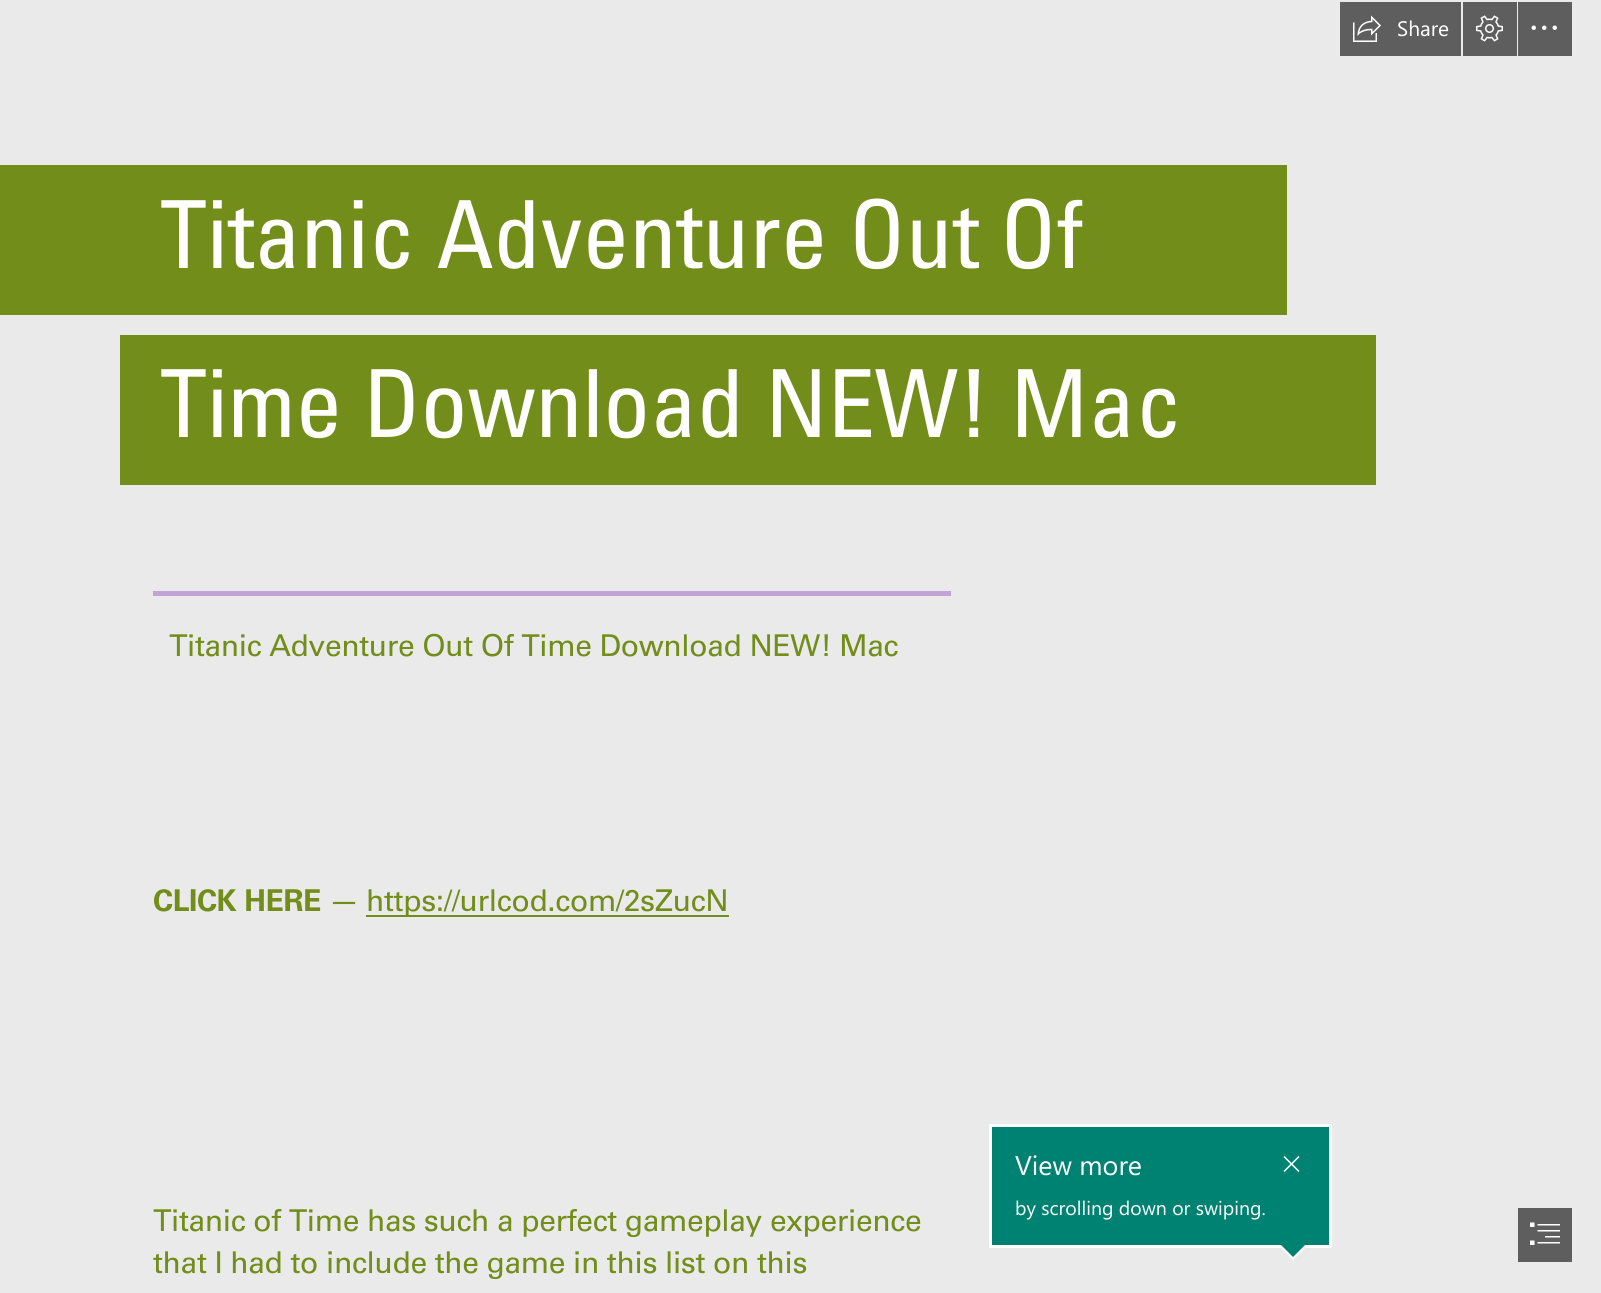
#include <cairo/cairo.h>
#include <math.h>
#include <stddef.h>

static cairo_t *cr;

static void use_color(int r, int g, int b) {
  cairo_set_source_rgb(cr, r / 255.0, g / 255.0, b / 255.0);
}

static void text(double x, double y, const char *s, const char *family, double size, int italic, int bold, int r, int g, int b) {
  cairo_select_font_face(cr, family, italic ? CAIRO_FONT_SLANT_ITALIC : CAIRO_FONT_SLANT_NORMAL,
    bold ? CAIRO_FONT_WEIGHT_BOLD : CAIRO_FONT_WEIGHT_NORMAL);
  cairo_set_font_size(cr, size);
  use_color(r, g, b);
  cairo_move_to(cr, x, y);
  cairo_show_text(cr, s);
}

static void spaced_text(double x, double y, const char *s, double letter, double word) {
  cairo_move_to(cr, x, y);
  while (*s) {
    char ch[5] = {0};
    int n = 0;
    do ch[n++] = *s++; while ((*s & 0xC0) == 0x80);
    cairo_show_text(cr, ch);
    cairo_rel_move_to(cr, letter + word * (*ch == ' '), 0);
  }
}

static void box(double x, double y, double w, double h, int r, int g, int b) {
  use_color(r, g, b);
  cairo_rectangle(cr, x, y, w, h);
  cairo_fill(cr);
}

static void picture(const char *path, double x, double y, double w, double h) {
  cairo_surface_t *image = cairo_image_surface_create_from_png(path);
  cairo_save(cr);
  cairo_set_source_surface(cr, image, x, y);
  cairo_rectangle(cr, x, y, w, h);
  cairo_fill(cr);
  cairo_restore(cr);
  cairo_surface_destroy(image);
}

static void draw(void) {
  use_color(234, 234, 234);
  cairo_paint(cr);
  box(1340, 2, 121, 54, 94, 94, 94);
  picture("img_01.png", 1353, 15, 28, 27);
  box(1463, 2, 54, 54, 94, 94, 94);
  picture("img_02.png", 1476, 15, 27, 27);
  box(1518, 2, 54, 54, 94, 94, 94);
  picture("img_03.png", 1531, 25, 26, 5);
  box(0, 165, 1287, 150, 114, 141, 25);
  box(120, 335, 1256, 150, 114, 141, 25);
  box(153, 591, 798, 5, 195, 162, 213);
  box(366, 915, 363, 2, 114, 141, 25);
  use_color(0, 130, 114);
  cairo_rectangle(cr, 990.5, 1125.5, 340, 121);
  cairo_fill_preserve(cr);
  use_color(255, 255, 255);
  cairo_set_line_width(cr, 3);
  cairo_stroke(cr);
  picture("img_04.png", 1283, 1156, 17, 16);
  cairo_new_path(cr);
  cairo_move_to(cr, 1278, 1245);
  cairo_line_to(cr, 1308, 1245);
  cairo_line_to(cr, 1293, 1260);
  cairo_close_path(cr);
  cairo_fill(cr);
  use_color(0, 130, 114);
  cairo_new_path(cr);
  cairo_move_to(cr, 1281, 1245);
  cairo_line_to(cr, 1305, 1245);
  cairo_line_to(cr, 1293, 1257);
  cairo_close_path(cr);
  cairo_fill(cr);
  box(1518, 1208, 54, 54, 94, 94, 94);
  picture("img_05.png", 1530, 1222, 30, 23);
  text(1397, 36, "Share", "Segoe UI", 21, 0, 0, 255, 255, 255);
  text(160, 268, "Titanic Adventure Out Of", "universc", 93.9, 0, 0, 255, 255, 255);
  text(160, 437, "Time Download NEW! Mac", "universc", 93.9, 0, 0, 255, 255, 255);
  cairo_select_font_face(cr, "univers", CAIRO_FONT_SLANT_NORMAL, CAIRO_FONT_WEIGHT_NORMAL);
  cairo_set_font_size(cr, 30.05);
  use_color(114, 141, 25);
  spaced_text(169, 656, "Titanic Adventure Out Of Time Download NEW! Mac", -0.4, 0);
  cairo_select_font_face(cr, "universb", CAIRO_FONT_SLANT_NORMAL, CAIRO_FONT_WEIGHT_BOLD);
  spaced_text(153, 911, "CLICK HERE", -0.4, 0);
  cairo_select_font_face(cr, "univers", CAIRO_FONT_SLANT_NORMAL, CAIRO_FONT_WEIGHT_NORMAL);
  spaced_text(329, 911, "—", -0.4, 0);
  spaced_text(366, 911, "https://urlcod.com/2sZucN", -0.4, 0);
  spaced_text(153, 1231, "Titanic of Time has such a perfect gameplay experience", -0.4, 0);
  spaced_text(153, 1273, "that I had to include the game in this list on this", -0.4, 0);
  text(1015, 1175, "View more", "Segoe UI", 27, 0, 0, 255, 255, 255);
  text(1015, 1215, "by scrolling down or swiping.", "Segoe UI", 19.5, 0, 0, 255, 255, 255);
}

int main(void) {
  cairo_surface_t *surface = cairo_image_surface_create(CAIRO_FORMAT_RGB24, 1601, 1293);
  cr = cairo_create(surface);
  cairo_font_options_t *options = cairo_font_options_create();
  cairo_font_options_set_hint_metrics(options, CAIRO_HINT_METRICS_OFF);
  cairo_font_options_set_hint_style(options, CAIRO_HINT_STYLE_NONE);
  cairo_set_font_options(cr, options);
  cairo_set_miter_limit(cr, 4);
  draw();
  cairo_surface_write_to_png(surface, "out.png");
  cairo_font_options_destroy(options);
  cairo_destroy(cr);
  cairo_surface_destroy(surface);
  return 0;
}
